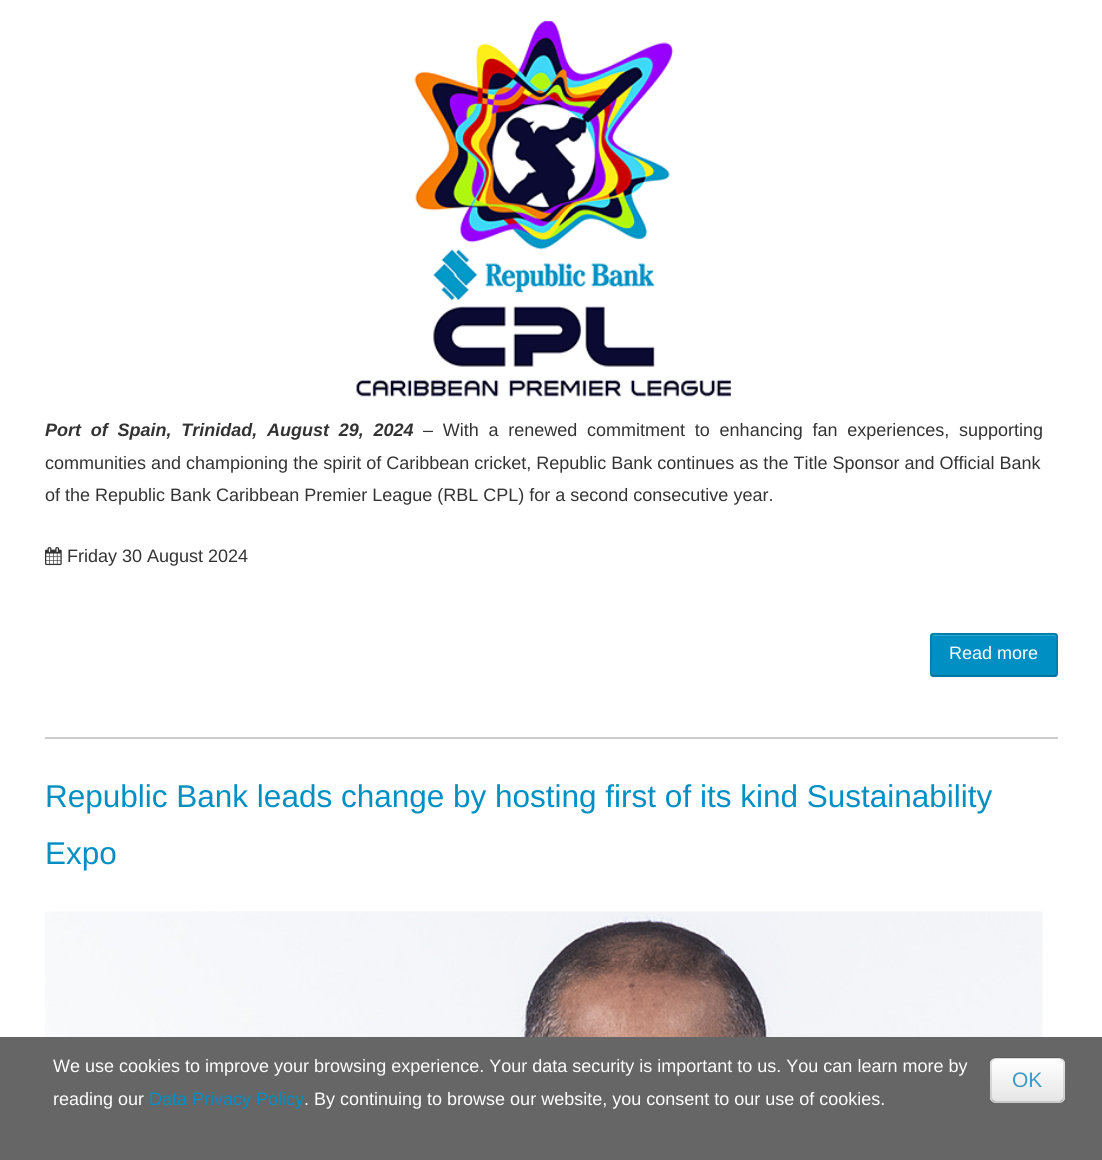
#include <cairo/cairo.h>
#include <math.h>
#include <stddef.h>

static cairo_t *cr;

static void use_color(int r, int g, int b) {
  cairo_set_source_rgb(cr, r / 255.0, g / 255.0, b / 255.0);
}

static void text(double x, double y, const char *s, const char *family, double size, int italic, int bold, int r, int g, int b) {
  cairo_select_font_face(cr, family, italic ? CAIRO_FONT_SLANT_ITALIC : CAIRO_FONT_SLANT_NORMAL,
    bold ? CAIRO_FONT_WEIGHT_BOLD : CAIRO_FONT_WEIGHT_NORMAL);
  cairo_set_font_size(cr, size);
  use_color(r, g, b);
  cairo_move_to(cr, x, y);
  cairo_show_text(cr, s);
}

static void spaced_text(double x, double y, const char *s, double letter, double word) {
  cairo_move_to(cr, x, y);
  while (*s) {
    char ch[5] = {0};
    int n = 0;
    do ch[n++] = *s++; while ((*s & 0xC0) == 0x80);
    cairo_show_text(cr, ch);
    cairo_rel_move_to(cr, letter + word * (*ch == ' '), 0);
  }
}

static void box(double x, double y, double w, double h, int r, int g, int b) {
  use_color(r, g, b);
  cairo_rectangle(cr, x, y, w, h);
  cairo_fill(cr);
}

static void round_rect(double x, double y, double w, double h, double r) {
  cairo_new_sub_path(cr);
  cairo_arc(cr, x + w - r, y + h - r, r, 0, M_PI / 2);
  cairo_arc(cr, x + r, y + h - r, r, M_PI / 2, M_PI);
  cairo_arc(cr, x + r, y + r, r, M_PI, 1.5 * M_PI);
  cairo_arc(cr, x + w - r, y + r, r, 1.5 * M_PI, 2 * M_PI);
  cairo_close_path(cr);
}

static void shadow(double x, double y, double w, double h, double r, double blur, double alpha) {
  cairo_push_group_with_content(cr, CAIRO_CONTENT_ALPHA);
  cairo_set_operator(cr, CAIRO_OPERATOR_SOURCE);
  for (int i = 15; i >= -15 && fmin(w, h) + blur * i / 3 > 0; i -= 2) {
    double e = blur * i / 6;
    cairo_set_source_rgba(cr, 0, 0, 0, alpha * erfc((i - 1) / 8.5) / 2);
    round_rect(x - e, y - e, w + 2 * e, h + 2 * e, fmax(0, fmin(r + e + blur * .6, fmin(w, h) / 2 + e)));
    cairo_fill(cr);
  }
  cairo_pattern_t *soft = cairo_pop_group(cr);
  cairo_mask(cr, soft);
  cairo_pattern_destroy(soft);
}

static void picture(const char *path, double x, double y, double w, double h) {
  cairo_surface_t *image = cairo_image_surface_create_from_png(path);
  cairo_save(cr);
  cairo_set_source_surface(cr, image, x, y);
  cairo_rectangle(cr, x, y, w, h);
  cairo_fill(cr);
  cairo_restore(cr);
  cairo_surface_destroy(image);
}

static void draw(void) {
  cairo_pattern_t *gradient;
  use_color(255, 255, 255);
  cairo_paint(cr);
  box(45, 737, 1013, 2, 204, 204, 204);
  picture("img_01.png", 356, 21, 375, 376);
  picture("img_02.png", 45, 547, 17, 19);
  use_color(0, 0, 0);
  shadow(930, 635, 128, 43, 3, 1.5, 0.05);
  use_color(0, 143, 195);
  round_rect(930, 633, 128, 44, 3);
  cairo_fill(cr);
  use_color(51, 165, 207);
  cairo_new_path(cr);
  cairo_move_to(cr, 933, 636);
  cairo_line_to(cr, 1054, 636);
  cairo_line_to(cr, 1056, 637);
  cairo_line_to(cr, 1056, 638);
  cairo_curve_to(cr, 1056, 637, 1056, 635, 1054, 635);
  cairo_line_to(cr, 934, 635);
  cairo_curve_to(cr, 932, 635, 932, 637, 932, 638);
  cairo_curve_to(cr, 932, 637, 932, 636, 933, 636);
  cairo_close_path(cr);
  cairo_fill(cr);
  cairo_new_path(cr);
  cairo_move_to(cr, 1056, 675);
  cairo_line_to(cr, 1054.5, 676);
  cairo_line_to(cr, 933, 676);
  cairo_line_to(cr, 931.5, 675);
  cairo_set_source_rgba(cr, 0, 0, 0, 0.25);
  cairo_set_line_width(cr, 1.5);
  cairo_stroke(cr);
  cairo_new_path(cr);
  cairo_move_to(cr, 931.5, 675);
  cairo_curve_to(cr, 929.5, 673.5, 931, 658, 931, 655);
  cairo_curve_to(cr, 931, 628, 925.5, 634, 953, 634);
  cairo_line_to(cr, 1034, 634);
  cairo_curve_to(cr, 1062, 634, 1057, 628, 1057, 655);
  cairo_curve_to(cr, 1057, 658, 1058, 673.5, 1056, 675);
  cairo_set_source_rgba(cr, 0, 0, 0, 0.15);
  cairo_stroke(cr);
  picture("img_03.png", 45, 911, 998, 126);
  box(0, 1037, 1102, 123, 102, 102, 102);
  use_color(245, 245, 245);
  round_rect(990, 1058, 75, 45, 6);
  cairo_fill(cr);
  cairo_save(cr);
  round_rect(990, 1058, 75, 45, 6);
  cairo_clip(cr);
  gradient = cairo_pattern_create_linear(1028, 1059, 1028, 1101);
  cairo_pattern_add_color_stop_rgba(gradient, 0, 1, 1, 1, 1);
  cairo_pattern_add_color_stop_rgba(gradient, 1, 0.902, 0.902, 0.902, 1);
  cairo_set_source(cr, gradient);
  cairo_pattern_destroy(gradient);
  cairo_rectangle(cr, 990, 1059, 75, 42);
  cairo_fill(cr);
  cairo_restore(cr);
  cairo_new_path(cr);
  cairo_move_to(cr, 1062.5, 1100);
  cairo_curve_to(cr, 1061.5, 1101, 1060.5, 1102, 1059, 1102);
  cairo_line_to(cr, 996, 1102);
  cairo_curve_to(cr, 994.5, 1102, 993.5, 1101, 992.5, 1100);
  cairo_set_source_rgba(cr, 0, 0, 0, 0.25);
  cairo_stroke(cr);
  cairo_new_path(cr);
  cairo_move_to(cr, 992.5, 1100);
  cairo_curve_to(cr, 991.5, 1099, 991, 1098, 991, 1096.5);
  cairo_line_to(cr, 991, 1063.5);
  cairo_curve_to(cr, 991, 1062, 991.5, 1061, 992.5, 1060);
  cairo_curve_to(cr, 993.5, 1059, 994.5, 1058, 996, 1058);
  cairo_line_to(cr, 1059, 1058);
  cairo_curve_to(cr, 1060.5, 1058, 1061.5, 1059, 1062.5, 1060);
  cairo_curve_to(cr, 1063.5, 1061, 1064, 1062, 1064, 1063.5);
  cairo_line_to(cr, 1064, 1096.5);
  cairo_curve_to(cr, 1064, 1098, 1063.5, 1099, 1062.5, 1100);
  cairo_set_source_rgba(cr, 0, 0, 0, 0.15);
  cairo_stroke(cr);
  cairo_select_font_face(cr, "Liberation Sans", CAIRO_FONT_SLANT_ITALIC, CAIRO_FONT_WEIGHT_BOLD);
  cairo_set_font_size(cr, 18);
  use_color(51, 51, 51);
  spaced_text(45, 436, "Port of Spain, Trinidad, August 29, 2024", 0, 4.75);
  cairo_select_font_face(cr, "Liberation Sans", CAIRO_FONT_SLANT_NORMAL, CAIRO_FONT_WEIGHT_NORMAL);
  spaced_text(423, 436, "– With a renewed commitment to enhancing fan experiences, supporting", 0, 4.75);
  text(45, 469, "communities and championing the spirit of Caribbean cricket, Republic Bank continues as the Title Sponsor and Official Bank", "Liberation Sans", 18, 0, 0, 51, 51, 51);
  text(45, 501, "of the Republic Bank Caribbean Premier League (RBL CPL) for a second consecutive year.", "Liberation Sans", 18, 0, 0, 51, 51, 51);
  text(67, 562, "Friday 30 August 2024", "Liberation Sans", 18, 0, 0, 51, 51, 51);
  text(949, 659, "Read more", "Liberation Sans", 18, 0, 0, 255, 255, 255);
  text(45, 807, "Republic Bank leads change by hosting first of its kind Sustainability", "Liberation Sans", 31.5, 0, 0, 0, 143, 195);
  text(45, 864, "Expo", "Liberation Sans", 31.5, 0, 0, 0, 143, 195);
  text(53, 1072, "We use cookies to improve your browsing experience. Your data security is important to us. You can learn more by", "Liberation Sans", 18, 0, 0, 255, 255, 255);
  text(53, 1105, "reading our", "Liberation Sans", 18, 0, 0, 255, 255, 255);
  text(149, 1105, "Data Privacy Policy", "Liberation Sans", 18, 0, 0, 0, 143, 195);
  text(304, 1105, ". By continuing to browse our website, you consent to our use of cookies.", "Liberation Sans", 18, 0, 0, 255, 255, 255);
  text(1012, 1087, "OK", "Liberation Sans", 21, 0, 0, 63, 154, 194);
}

int main(void) {
  cairo_surface_t *surface = cairo_image_surface_create(CAIRO_FORMAT_RGB24, 1102, 1160);
  cr = cairo_create(surface);
  cairo_font_options_t *options = cairo_font_options_create();
  cairo_font_options_set_hint_metrics(options, CAIRO_HINT_METRICS_OFF);
  cairo_font_options_set_hint_style(options, CAIRO_HINT_STYLE_NONE);
  cairo_set_font_options(cr, options);
  cairo_set_miter_limit(cr, 4);
  draw();
  cairo_surface_write_to_png(surface, "out.png");
  cairo_font_options_destroy(options);
  cairo_destroy(cr);
  cairo_surface_destroy(surface);
  return 0;
}
